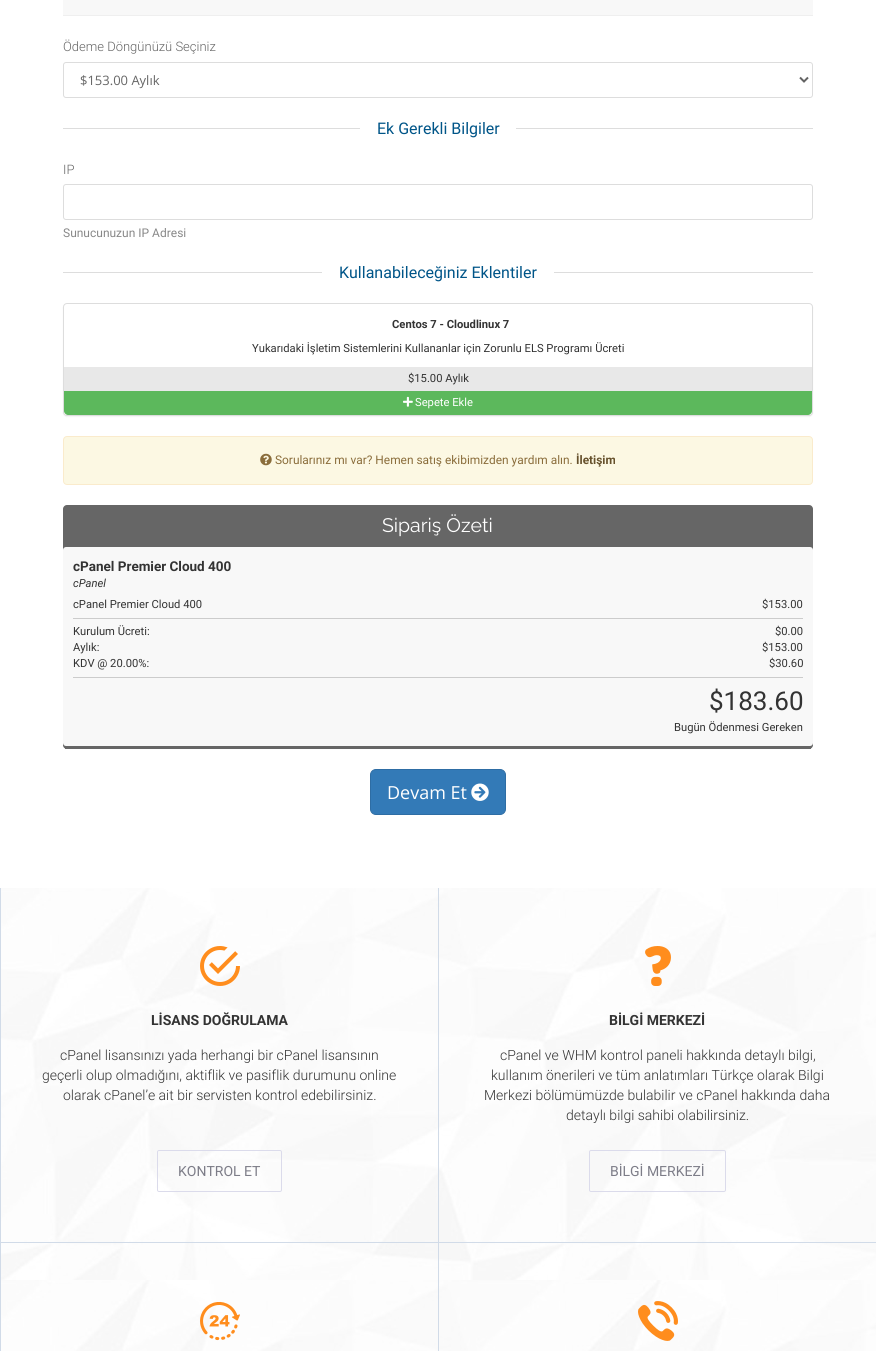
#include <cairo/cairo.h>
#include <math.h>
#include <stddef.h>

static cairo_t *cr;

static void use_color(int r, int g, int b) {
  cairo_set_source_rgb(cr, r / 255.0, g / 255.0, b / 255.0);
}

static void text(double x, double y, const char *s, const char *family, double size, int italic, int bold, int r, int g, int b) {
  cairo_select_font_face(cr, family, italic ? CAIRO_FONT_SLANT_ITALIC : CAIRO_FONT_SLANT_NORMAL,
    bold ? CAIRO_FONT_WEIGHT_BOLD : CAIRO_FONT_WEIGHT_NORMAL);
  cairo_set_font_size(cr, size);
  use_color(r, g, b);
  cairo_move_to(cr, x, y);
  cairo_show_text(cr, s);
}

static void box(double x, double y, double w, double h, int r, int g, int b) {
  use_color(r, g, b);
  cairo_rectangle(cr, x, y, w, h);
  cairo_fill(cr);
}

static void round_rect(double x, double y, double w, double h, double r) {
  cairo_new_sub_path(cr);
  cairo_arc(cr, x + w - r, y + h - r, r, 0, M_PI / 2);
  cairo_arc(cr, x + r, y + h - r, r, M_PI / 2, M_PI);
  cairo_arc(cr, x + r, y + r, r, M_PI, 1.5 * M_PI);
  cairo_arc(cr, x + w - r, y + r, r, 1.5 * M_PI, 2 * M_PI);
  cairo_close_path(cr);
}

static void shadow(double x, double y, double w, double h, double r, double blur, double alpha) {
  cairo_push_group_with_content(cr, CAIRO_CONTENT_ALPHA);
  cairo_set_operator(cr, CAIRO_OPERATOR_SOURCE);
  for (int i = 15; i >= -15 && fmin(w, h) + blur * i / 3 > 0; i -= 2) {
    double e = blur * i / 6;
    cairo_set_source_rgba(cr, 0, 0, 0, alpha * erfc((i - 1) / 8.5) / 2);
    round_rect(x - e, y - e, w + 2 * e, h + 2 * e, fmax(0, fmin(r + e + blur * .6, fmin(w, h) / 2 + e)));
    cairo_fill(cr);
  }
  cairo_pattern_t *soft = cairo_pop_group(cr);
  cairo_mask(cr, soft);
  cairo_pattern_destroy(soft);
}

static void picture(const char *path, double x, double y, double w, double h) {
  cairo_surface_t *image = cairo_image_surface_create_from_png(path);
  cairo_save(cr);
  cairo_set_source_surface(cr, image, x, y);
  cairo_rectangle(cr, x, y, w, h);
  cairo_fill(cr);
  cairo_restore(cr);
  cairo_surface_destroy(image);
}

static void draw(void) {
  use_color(255, 255, 255);
  cairo_paint(cr);
  box(63, 0, 750, 15, 248, 248, 248);
  box(63, 15, 750, 1, 239, 239, 239);
  round_rect(63.5, 62.5, 749, 35, 2.5);
  use_color(221, 221, 221);
  cairo_set_line_width(cr, 1);
  cairo_stroke(cr);
  cairo_new_path(cr);
  cairo_move_to(cr, 800, 77.5);
  cairo_line_to(cr, 804, 81.5);
  cairo_line_to(cr, 808, 77.5);
  use_color(98, 98, 98);
  cairo_set_line_width(cr, 2);
  cairo_stroke(cr);
  box(63, 128, 750, 1, 221, 221, 221);
  box(360, 128, 156, 1, 255, 255, 255);
  round_rect(63.5, 184.5, 749, 35, 2.5);
  use_color(221, 221, 221);
  cairo_set_line_width(cr, 1);
  cairo_stroke(cr);
  box(63, 272, 750, 1, 221, 221, 221);
  box(322, 272, 232, 1, 255, 255, 255);
  use_color(0, 0, 0);
  shadow(63, 304, 750, 113, 4, 0.5, 0.05);
  use_color(255, 255, 255);
  round_rect(63.5, 303.5, 749, 112, 3.5);
  cairo_fill_preserve(cr);
  use_color(221, 221, 221);
  cairo_stroke(cr);
  box(64, 367, 748, 24, 232, 232, 232);
  use_color(92, 184, 92);
  cairo_new_path(cr);
  cairo_move_to(cr, 64, 391);
  cairo_line_to(cr, 812, 391);
  cairo_line_to(cr, 812, 411);
  cairo_curve_to(cr, 812, 413, 810, 415, 808, 415);
  cairo_line_to(cr, 68, 415);
  cairo_curve_to(cr, 66, 415, 64, 413, 64, 411);
  cairo_close_path(cr);
  cairo_fill(cr);
  picture("img_01.png", 403, 396, 10, 11);
  use_color(252, 248, 227);
  round_rect(63.5, 436.5, 749, 48, 3.5);
  cairo_fill_preserve(cr);
  use_color(250, 235, 204);
  cairo_stroke(cr);
  picture("img_02.png", 260, 453, 12, 13);
  use_color(102, 102, 102);
  round_rect(63, 505, 750, 244, 4);
  cairo_fill(cr);
  box(65, 748, 746, 1, 102, 102, 102);
  use_color(248, 248, 248);
  round_rect(63, 547, 750, 199, 3);
  cairo_fill(cr);
  box(73, 618, 730, 1, 204, 204, 204);
  box(73, 677, 730, 1, 204, 204, 204);
  use_color(51, 122, 183);
  round_rect(370.5, 769.5, 135, 45, 5.5);
  cairo_fill_preserve(cr);
  use_color(46, 109, 164);
  cairo_stroke(cr);
  picture("img_03.png", 471, 783, 18, 18);
  picture("img_04.png", 1, 888, 875, 463);
  box(0, 1242, 876, 1, 209, 219, 232);
  box(0, 888, 1, 463, 209, 219, 232);
  picture("img_05.png", 200, 946, 40, 40);
  round_rect(157.5, 1150.5, 124, 41, 1.5);
  use_color(219, 219, 235);
  cairo_stroke(cr);
  box(438, 888, 1, 463, 209, 219, 232);
  picture("img_06.png", 645, 946, 26, 40);
  round_rect(589.5, 1150.5, 136, 41, 1.5);
  use_color(219, 219, 235);
  cairo_stroke(cr);
  picture("img_07.png", 200, 1301, 40, 40);
  picture("img_08.png", 638, 1301, 40, 40);
  text(63, 51, "Ödeme Döngünüzü Seçiniz", "Roboto Light", 13, 0, 0, 102, 102, 102);
  text(80, 85, "$153.00 Aylık", "Open Sans", 13, 0, 0, 102, 102, 102);
  text(377, 134, "Ek Gerekli Bilgiler", "Roboto", 16, 0, 0, 0, 85, 136);
  text(63, 174, "IP", "Roboto Light", 13, 0, 0, 102, 102, 102);
  text(63, 237, "Sunucunuzun IP Adresi", "Roboto", 12, 0, 0, 136, 136, 136);
  text(339, 278, "Kullanabileceğiniz Eklentiler", "Roboto", 16, 0, 0, 0, 85, 136);
  text(392, 328, "Centos 7 - Cloudlinux 7", "Roboto", 11.2, 0, 1, 51, 51, 51);
  text(252, 352, "Yukarıdaki İşletim Sistemlerini Kullananlar için Zorunlu ELS Programı Ücreti", "Roboto", 11.2, 0, 0, 51, 51, 51);
  text(408, 382, "$15.00 Aylık", "Roboto", 11.2, 0, 0, 51, 51, 51);
  text(415, 406, "Sepete Ekle", "Roboto", 11.2, 0, 0, 255, 255, 255);
  text(275, 464, "Sorularınız mı var? Hemen satış ekibimizden yardım alın.", "Roboto", 11.9, 0, 0, 138, 109, 59);
  text(576, 464, "İletişim", "Roboto", 11.9, 0, 1, 102, 81, 44);
  text(382, 532, "Sipariş Özeti", "Raleway", 19.5, 0, 0, 255, 255, 255);
  text(73, 571, "cPanel Premier Cloud 400", "Roboto", 13.5, 0, 1, 51, 51, 51);
  text(73, 587, "cPanel", "Roboto", 11.2, 1, 0, 51, 51, 51);
  text(73, 608, "cPanel Premier Cloud 400", "Roboto", 11.2, 0, 0, 51, 51, 51);
  text(762, 608, "$153.00", "Roboto", 11.2, 0, 0, 51, 51, 51);
  text(73, 635, "Kurulum Ücreti:", "Roboto", 11.2, 0, 0, 51, 51, 51);
  text(775, 635, "$0.00", "Roboto", 11.2, 0, 0, 51, 51, 51);
  text(73, 651, "Aylık:", "Roboto", 11.2, 0, 0, 51, 51, 51);
  text(762, 651, "$153.00", "Roboto", 11.2, 0, 0, 51, 51, 51);
  text(73, 667, "KDV @ 20.00%:", "Roboto", 11.2, 0, 0, 51, 51, 51);
  text(769, 667, "$30.60", "Roboto", 11.2, 0, 0, 51, 51, 51);
  text(709, 710, "$183.60", "Roboto", 26, 0, 0, 51, 51, 51);
  text(674, 731, "Bugün Ödenmesi Gereken", "Roboto", 11.2, 0, 0, 51, 51, 51);
  text(387, 799, "Devam Et", "Open Sans", 18, 0, 0, 255, 255, 255);
  text(151, 1025, "LİSANS DOĞRULAMA", "Roboto", 14, 0, 1, 51, 51, 51);
  text(60, 1060, "cPanel lisansınızı yada herhangi bir cPanel lisansının", "Roboto Light", 14, 0, 0, 51, 51, 51);
  text(42, 1080, "geçerli olup olmadığını, aktiflik ve pasiflik durumunu online", "Roboto Light", 14, 0, 0, 51, 51, 51);
  text(63, 1100, "olarak cPanel’e ait bir servisten kontrol edebilirsiniz.", "Roboto Light", 14, 0, 0, 51, 51, 51);
  text(178, 1176, "KONTROL ET", "Roboto", 14, 0, 0, 125, 125, 136);
  text(609, 1025, "BİLGİ MERKEZİ", "Roboto", 14, 0, 1, 51, 51, 51);
  text(500, 1060, "cPanel ve WHM kontrol paneli hakkında detaylı bilgi,", "Roboto Light", 14, 0, 0, 51, 51, 51);
  text(491, 1080, "kullanım önerileri ve tüm anlatımları Türkçe olarak Bilgi", "Roboto Light", 14, 0, 0, 51, 51, 51);
  text(484, 1100, "Merkezi bölümümüzde bulabilir ve cPanel hakkında daha", "Roboto Light", 14, 0, 0, 51, 51, 51);
  text(566, 1120, "detaylı bilgi sahibi olabilirsiniz.", "Roboto Light", 14, 0, 0, 51, 51, 51);
  text(610, 1176, "BİLGİ MERKEZİ", "Roboto", 14, 0, 0, 125, 125, 136);
}

int main(void) {
  cairo_surface_t *surface = cairo_image_surface_create(CAIRO_FORMAT_RGB24, 876, 1351);
  cr = cairo_create(surface);
  cairo_font_options_t *options = cairo_font_options_create();
  cairo_font_options_set_hint_metrics(options, CAIRO_HINT_METRICS_OFF);
  cairo_font_options_set_hint_style(options, CAIRO_HINT_STYLE_NONE);
  cairo_set_font_options(cr, options);
  cairo_set_miter_limit(cr, 4);
  draw();
  cairo_surface_write_to_png(surface, "out.png");
  cairo_font_options_destroy(options);
  cairo_destroy(cr);
  cairo_surface_destroy(surface);
  return 0;
}
